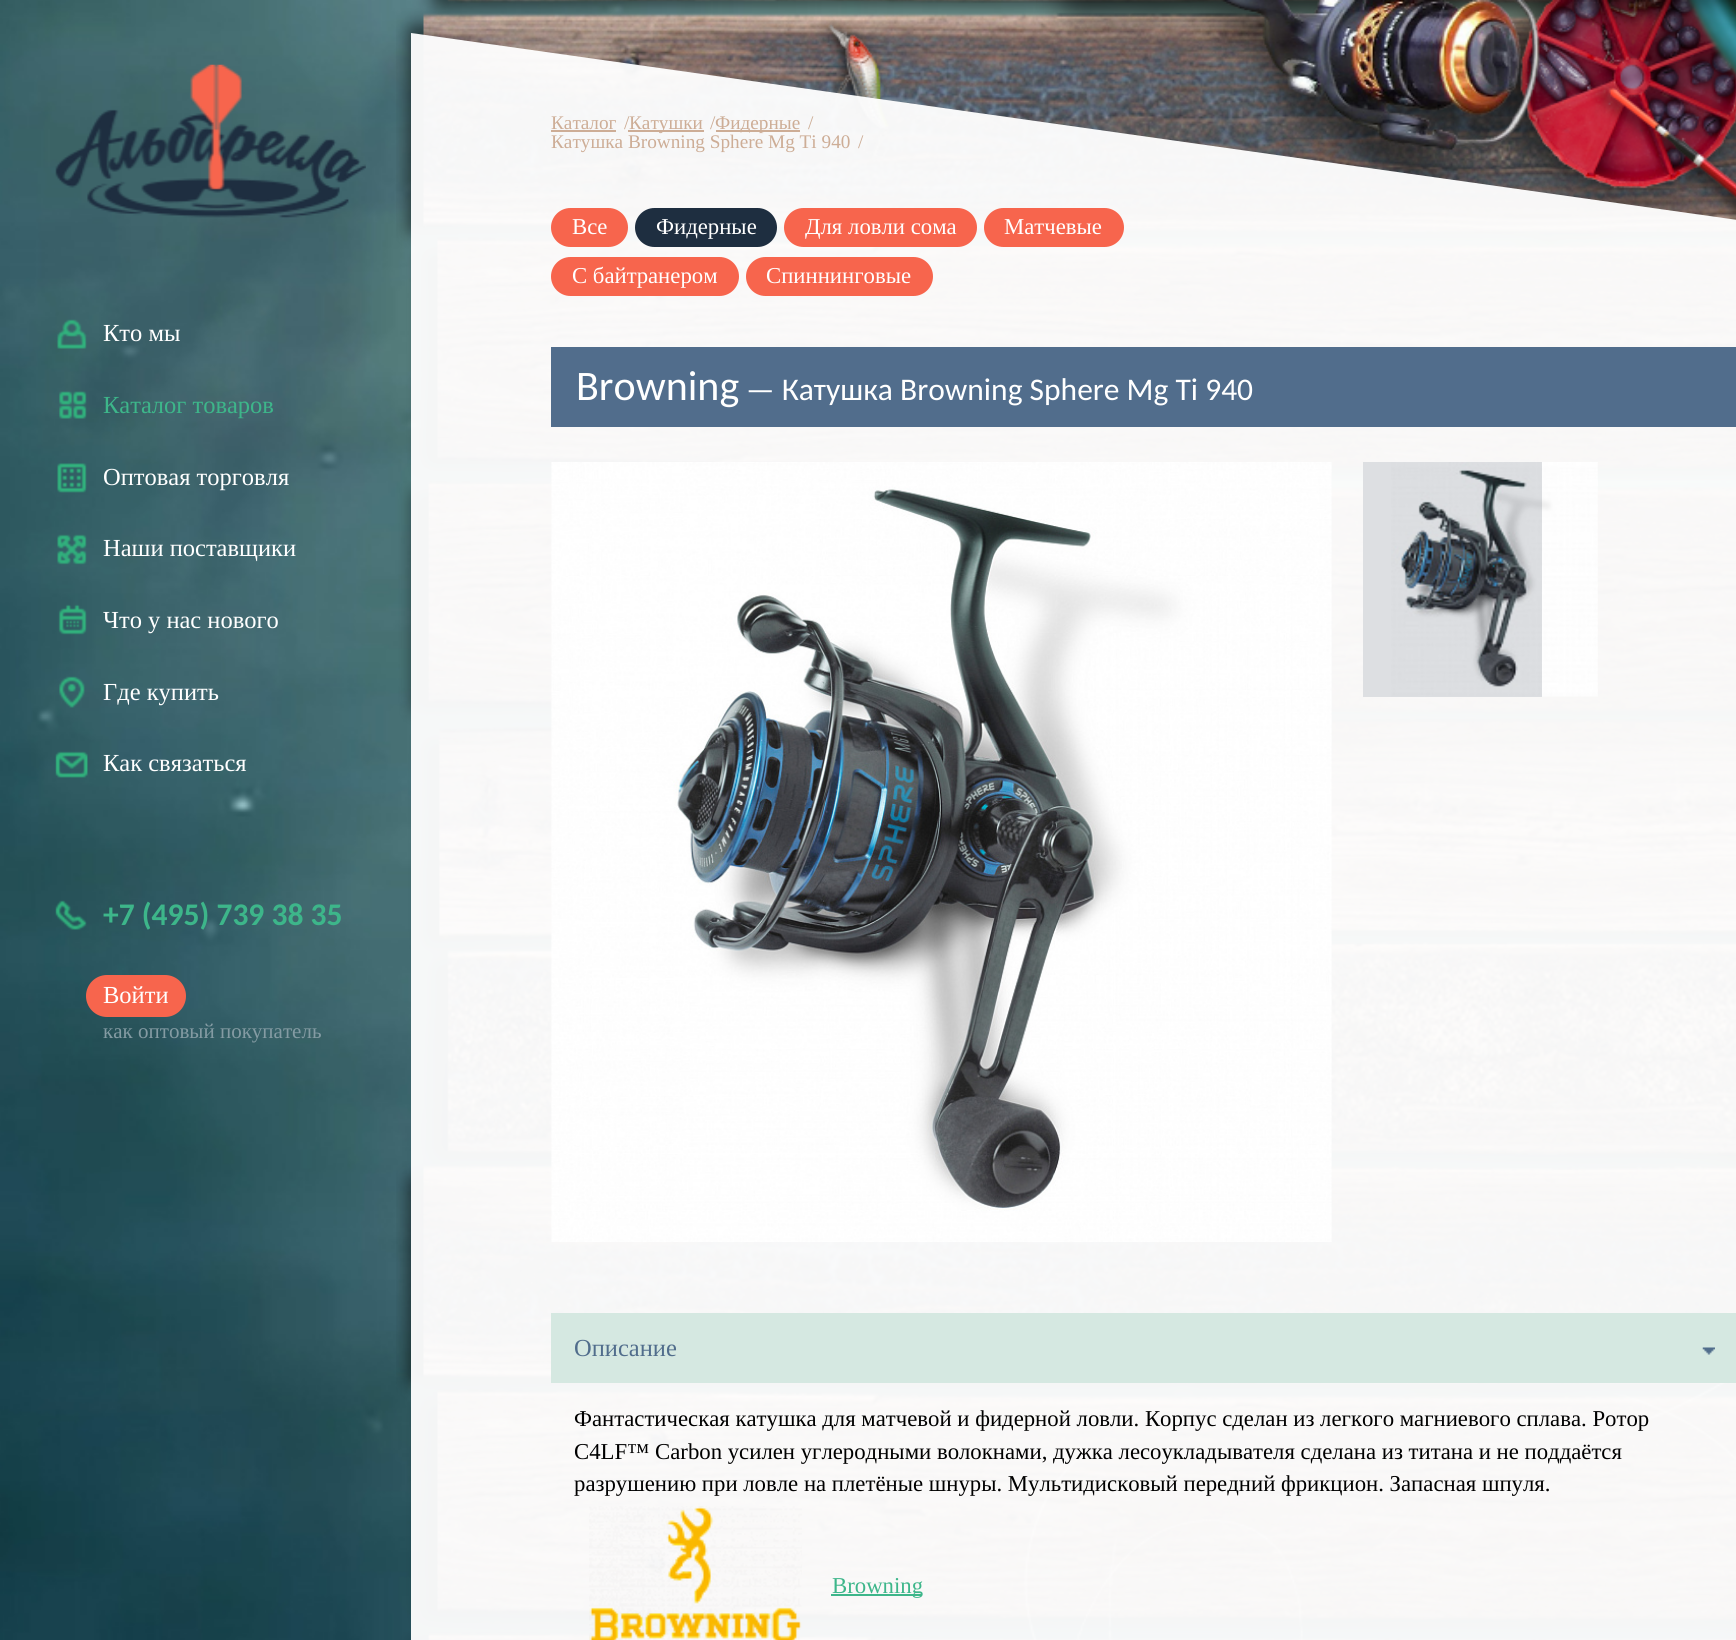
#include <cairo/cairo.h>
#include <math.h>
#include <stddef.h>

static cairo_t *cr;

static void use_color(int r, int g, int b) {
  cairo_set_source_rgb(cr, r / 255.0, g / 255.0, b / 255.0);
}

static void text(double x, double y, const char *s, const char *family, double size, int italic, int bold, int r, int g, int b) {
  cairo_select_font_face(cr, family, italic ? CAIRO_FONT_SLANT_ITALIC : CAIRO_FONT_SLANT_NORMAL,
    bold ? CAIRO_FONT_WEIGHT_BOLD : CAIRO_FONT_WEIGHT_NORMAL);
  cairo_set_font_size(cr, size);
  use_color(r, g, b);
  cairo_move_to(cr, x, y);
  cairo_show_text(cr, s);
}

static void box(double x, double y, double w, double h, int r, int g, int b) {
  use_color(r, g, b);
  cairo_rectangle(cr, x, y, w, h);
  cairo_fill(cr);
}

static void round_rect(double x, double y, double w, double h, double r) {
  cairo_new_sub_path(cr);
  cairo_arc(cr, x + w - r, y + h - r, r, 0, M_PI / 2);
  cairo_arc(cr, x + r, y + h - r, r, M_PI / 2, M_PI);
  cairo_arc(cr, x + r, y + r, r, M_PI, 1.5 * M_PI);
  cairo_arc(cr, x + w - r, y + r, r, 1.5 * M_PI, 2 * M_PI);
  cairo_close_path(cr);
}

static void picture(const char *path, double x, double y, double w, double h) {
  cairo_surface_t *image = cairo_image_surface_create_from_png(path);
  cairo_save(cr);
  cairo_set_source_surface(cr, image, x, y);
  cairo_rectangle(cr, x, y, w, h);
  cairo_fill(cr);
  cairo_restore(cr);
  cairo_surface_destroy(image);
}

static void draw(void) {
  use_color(255, 255, 255);
  cairo_paint(cr);
  picture("img_01.png", 0, 0, 1736, 1640);
  picture("img_02.png", 55, 64, 311, 154);
  picture("img_03.png", 57, 319, 30, 30);
  picture("img_04.png", 59, 391, 28, 28);
  picture("img_05.png", 57, 463, 30, 30);
  picture("img_06.png", 57, 534, 30, 31);
  picture("img_07.png", 58, 604, 29, 31);
  picture("img_08.png", 59, 676, 26, 32);
  picture("img_09.png", 55, 751, 33, 27);
  picture("img_10.png", 55, 900, 32, 30);
  use_color(247, 101, 77);
  round_rect(86, 975, 100, 42, 21);
  cairo_fill(cr);
  picture("img_11.png", 396, 0, 1340, 1640);
  picture("img_12.png", 815, 0, 921, 230);
  picture("img_17.png", 1023, 1383, 713, 257);
  cairo_set_source_rgba(cr, 1, 1, 1, 0.95);
  cairo_new_path(cr);
  cairo_move_to(cr, 411, 33);
  cairo_line_to(cr, 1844, 235);
  cairo_line_to(cr, 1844, 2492);
  cairo_line_to(cr, 411, 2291);
  cairo_close_path(cr);
  cairo_fill(cr);
  box(551, 130, 65, 2, 205, 173, 150);
  box(628, 130, 76, 2, 205, 173, 150);
  box(716, 130, 84, 2, 205, 173, 150);
  use_color(247, 101, 77);
  round_rect(551, 208, 77, 39, 19.5);
  cairo_fill(cr);
  use_color(30, 46, 64);
  round_rect(635, 208, 142, 39, 19.5);
  cairo_fill(cr);
  use_color(247, 101, 77);
  round_rect(784, 208, 193, 39, 19.5);
  cairo_fill(cr);
  round_rect(984, 208, 140, 39, 19.5);
  cairo_fill(cr);
  round_rect(551, 257, 188, 39, 19.5);
  cairo_fill(cr);
  round_rect(746, 257, 187, 39, 19.5);
  cairo_fill(cr);
  box(551, 347, 1185, 80, 81, 109, 140);
  picture("img_13.png", 551, 462, 781, 780);
  box(1363, 462, 179, 235, 255, 255, 255);
  picture("img_14.png", 1391, 462, 207, 235);
  cairo_set_source_rgba(cr, 0.118, 0.18, 0.251, 0.15);
  cairo_rectangle(cr, 1363, 462, 179, 235);
  cairo_fill(cr);
  box(551, 1313, 1185, 70, 213, 232, 225);
  picture("img_15.png", 1702, 1347, 13, 8);
  picture("img_16.png", 589, 1506, 213, 134);
  box(831, 1594, 91, 2, 61, 182, 138);
  text(103, 341, "Кто мы", "Liberation Serif", 24.5, 0, 0, 255, 255, 255);
  text(103, 413, "Каталог товаров", "Liberation Serif", 24.5, 0, 0, 61, 182, 138);
  text(103, 485, "Оптовая торговля", "Liberation Serif", 24.5, 0, 0, 255, 255, 255);
  text(103, 556, "Наши поставщики", "Liberation Serif", 24.5, 0, 0, 255, 255, 255);
  text(103, 628, "Что у нас нового", "Liberation Serif", 24.5, 0, 0, 255, 255, 255);
  text(103, 700, "Где купить", "Liberation Serif", 24.5, 0, 0, 255, 255, 255);
  text(103, 771, "Как связаться", "Liberation Serif", 24.5, 0, 0, 255, 255, 255);
  text(103, 925, "+7 (495) 739 38 35", "Carlito", 31.5, 0, 1, 61, 182, 138);
  text(103, 1003, "Войти", "Liberation Serif", 24.5, 0, 0, 255, 255, 255);
  text(103, 1038, "как оптовый покупатель", "Liberation Serif", 21, 0, 0, 132, 155, 163);
  text(551, 129, "Каталог", "Liberation Serif", 19.25, 0, 0, 205, 173, 150);
  text(624, 129, "/", "Liberation Serif", 19.25, 0, 0, 205, 173, 150);
  text(629, 129, "Катушки", "Liberation Serif", 19.25, 0, 0, 205, 173, 150);
  text(710, 129, "/", "Liberation Serif", 19.25, 0, 0, 205, 173, 150);
  text(715, 129, "Фидерные", "Liberation Serif", 19.25, 0, 0, 205, 173, 150);
  text(808, 129, "/", "Liberation Serif", 19.25, 0, 0, 205, 173, 150);
  text(551, 148, "Катушка Browning Sphere Mg Ti 940", "Liberation Serif", 19.25, 0, 0, 205, 173, 150);
  text(858, 148, "/", "Liberation Serif", 19.25, 0, 0, 205, 173, 150);
  text(572, 234, "Все", "Liberation Serif", 22.75, 0, 0, 255, 255, 255);
  text(656, 234, "Фидерные", "Liberation Serif", 22.75, 0, 0, 255, 255, 255);
  text(805, 234, "Для ловли сома", "Liberation Serif", 22.75, 0, 0, 255, 255, 255);
  text(1004, 234, "Матчевые", "Liberation Serif", 22.75, 0, 0, 255, 255, 255);
  text(572, 283, "С байтранером", "Liberation Serif", 22.75, 0, 0, 255, 255, 255);
  text(766, 283, "Спиннинговые", "Liberation Serif", 22.75, 0, 0, 255, 255, 255);
  text(576, 400, "Browning", "Carlito", 42, 0, 0, 255, 255, 255);
  text(746, 400, "— Катушка Browning Sphere Mg Ti 940", "Carlito", 31.5, 0, 0, 255, 255, 255);
  text(574, 1356, "Описание", "Liberation Serif", 24.5, 0, 0, 81, 109, 140);
  text(574, 1426, "Фантастическая катушка для матчевой и фидерной ловли. Корпус сделан из легкого магниевого сплава. Ротор", "Liberation Serif", 22.75, 0, 0, 0, 0, 0);
  text(574, 1459, "C4LF™ Carbon усилен углеродными волокнами, дужка лесоукладывателя сделана из титана и не поддаётся", "Liberation Serif", 22.75, 0, 0, 0, 0, 0);
  text(574, 1491, "разрушению при ловле на плетёные шнуры. Мультидисковый передний фрикцион. Запасная шпуля.", "Liberation Serif", 22.75, 0, 0, 0, 0, 0);
  text(832, 1593, "Browning", "Liberation Serif", 22.75, 0, 0, 61, 182, 138);
}

int main(void) {
  cairo_surface_t *surface = cairo_image_surface_create(CAIRO_FORMAT_RGB24, 1736, 1640);
  cr = cairo_create(surface);
  cairo_font_options_t *options = cairo_font_options_create();
  cairo_font_options_set_hint_metrics(options, CAIRO_HINT_METRICS_OFF);
  cairo_font_options_set_hint_style(options, CAIRO_HINT_STYLE_NONE);
  cairo_set_font_options(cr, options);
  cairo_set_miter_limit(cr, 4);
  draw();
  cairo_surface_write_to_png(surface, "out.png");
  cairo_font_options_destroy(options);
  cairo_destroy(cr);
  cairo_surface_destroy(surface);
  return 0;
}
